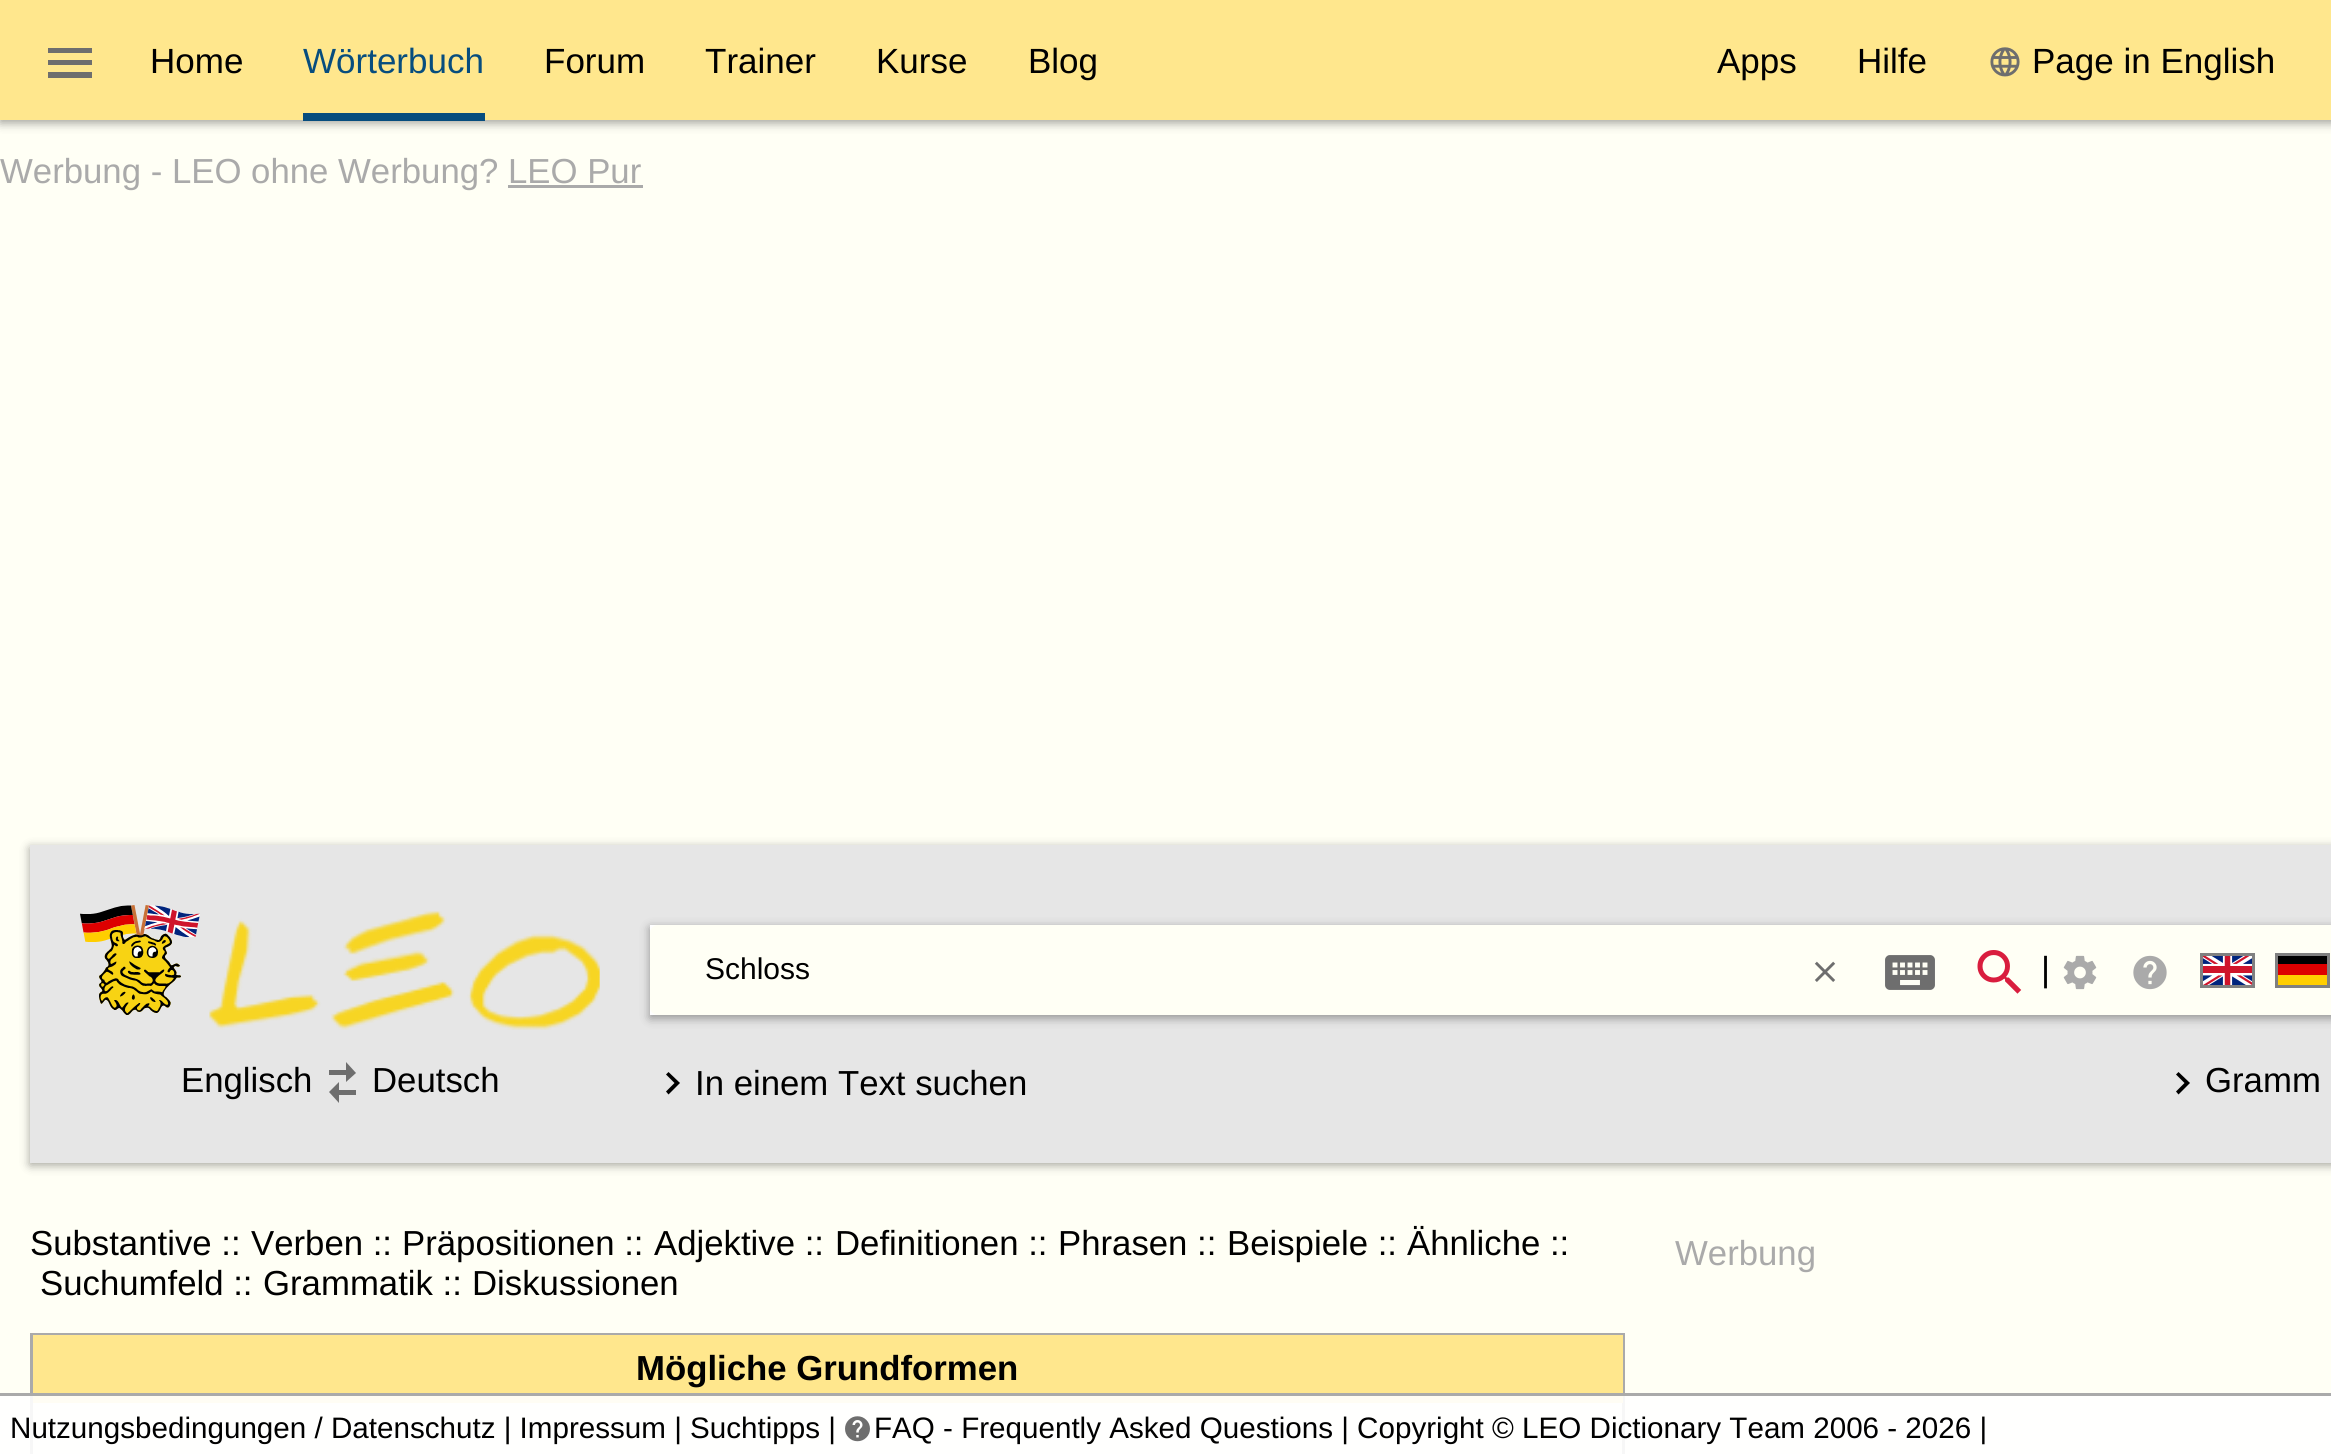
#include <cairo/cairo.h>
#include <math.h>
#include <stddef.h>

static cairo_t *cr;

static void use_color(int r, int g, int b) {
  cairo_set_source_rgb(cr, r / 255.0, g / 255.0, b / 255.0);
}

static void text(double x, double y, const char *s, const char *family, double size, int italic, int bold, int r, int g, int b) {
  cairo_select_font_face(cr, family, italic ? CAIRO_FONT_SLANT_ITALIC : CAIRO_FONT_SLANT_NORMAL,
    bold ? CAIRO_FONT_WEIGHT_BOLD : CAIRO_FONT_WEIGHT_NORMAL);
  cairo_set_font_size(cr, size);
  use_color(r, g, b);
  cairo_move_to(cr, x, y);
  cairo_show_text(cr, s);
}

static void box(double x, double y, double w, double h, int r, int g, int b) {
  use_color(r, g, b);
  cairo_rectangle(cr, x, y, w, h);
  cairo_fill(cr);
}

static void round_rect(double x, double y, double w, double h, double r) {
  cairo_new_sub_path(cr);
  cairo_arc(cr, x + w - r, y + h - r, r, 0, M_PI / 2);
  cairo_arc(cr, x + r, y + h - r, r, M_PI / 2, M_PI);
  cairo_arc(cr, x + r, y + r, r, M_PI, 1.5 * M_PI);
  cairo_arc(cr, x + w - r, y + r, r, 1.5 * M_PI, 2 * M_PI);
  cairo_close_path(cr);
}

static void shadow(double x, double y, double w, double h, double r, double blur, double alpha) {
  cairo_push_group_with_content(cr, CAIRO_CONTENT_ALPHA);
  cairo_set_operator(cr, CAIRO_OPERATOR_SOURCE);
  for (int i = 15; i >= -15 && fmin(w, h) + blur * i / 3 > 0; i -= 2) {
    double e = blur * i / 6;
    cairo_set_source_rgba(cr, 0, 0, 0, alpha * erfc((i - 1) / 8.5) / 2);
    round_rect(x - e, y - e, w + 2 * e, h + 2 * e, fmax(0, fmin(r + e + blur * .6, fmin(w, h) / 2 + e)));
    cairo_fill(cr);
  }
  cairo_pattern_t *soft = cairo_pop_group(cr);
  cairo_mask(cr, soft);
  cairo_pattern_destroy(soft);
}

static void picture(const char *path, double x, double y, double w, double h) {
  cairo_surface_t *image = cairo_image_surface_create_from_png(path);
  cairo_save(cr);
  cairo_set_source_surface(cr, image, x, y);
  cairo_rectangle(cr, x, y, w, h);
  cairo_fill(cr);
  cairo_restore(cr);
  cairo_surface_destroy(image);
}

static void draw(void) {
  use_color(255, 255, 245);
  cairo_paint(cr);
  use_color(0, 0, 0);
  shadow(0, 3, 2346, 120, 0, 5, 0.37);
  box(0, 0, 2331, 120, 255, 231, 141);
  use_color(110, 110, 110);
  cairo_new_path(cr);
  cairo_move_to(cr, 48, 48);
  cairo_line_to(cr, 92, 48);
  cairo_line_to(cr, 92, 53);
  cairo_line_to(cr, 48, 53);
  cairo_close_path(cr);
  cairo_move_to(cr, 48, 60);
  cairo_line_to(cr, 92, 60);
  cairo_line_to(cr, 92, 65);
  cairo_line_to(cr, 48, 65);
  cairo_close_path(cr);
  cairo_move_to(cr, 48, 72);
  cairo_line_to(cr, 92, 72);
  cairo_line_to(cr, 92, 78);
  cairo_line_to(cr, 48, 78);
  cairo_close_path(cr);
  cairo_fill(cr);
  box(303, 113, 182, 8, 7, 77, 126);
  picture("img_01.png", 1990, 47, 30, 30);
  box(508, 185, 135, 3, 170, 170, 170);
  use_color(0, 0, 0);
  shadow(30, 848, 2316, 317, 0, 5, 0.37);
  box(30, 845, 2301, 318, 230, 230, 230);
  picture("img_02.png", 80, 905, 120, 110);
  picture("img_03.png", 209, 911, 391, 119);
  use_color(0, 0, 0);
  shadow(650, 928, 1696, 90, 0, 5, 0.37);
  box(650, 925, 8, 90, 255, 255, 255);
  use_color(255, 255, 245);
  cairo_new_path(cr);
  cairo_move_to(cr, 658, 925);
  cairo_line_to(cr, 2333, 925);
  cairo_line_to(cr, 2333, 1015);
  cairo_line_to(cr, 658, 1015);
  cairo_curve_to(cr, 653.5, 1015, 650, 1011.5, 650, 1007);
  cairo_line_to(cr, 650, 933);
  cairo_curve_to(cr, 650, 928.5, 653.5, 925, 658, 925);
  cairo_close_path(cr);
  cairo_fill(cr);
  picture("img_04.png", 1814, 961, 22, 21);
  picture("img_05.png", 1885, 955, 50, 35);
  picture("img_06.png", 1977, 950, 45, 44);
  picture("img_07.png", 2063, 955, 34, 35);
  picture("img_08.png", 2133, 955, 34, 35);
  picture("img_09.png", 2203, 956, 49, 29);
  cairo_rectangle(cr, 2201.5, 954.5, 52, 32);
  use_color(128, 128, 128);
  cairo_set_line_width(cr, 3);
  cairo_stroke(cr);
  box(2278, 956, 49, 8, 0, 0, 0);
  box(2278, 964, 49, 11, 221, 0, 0);
  box(2278, 975, 49, 10, 255, 206, 0);
  cairo_rectangle(cr, 2276.5, 954.5, 52, 32);
  use_color(128, 128, 128);
  cairo_stroke(cr);
  use_color(110, 110, 110);
  cairo_new_path(cr);
  cairo_move_to(cr, 339, 1082);
  cairo_line_to(cr, 339, 1090);
  cairo_line_to(cr, 356, 1090);
  cairo_line_to(cr, 356, 1095);
  cairo_line_to(cr, 339, 1095);
  cairo_line_to(cr, 339, 1103);
  cairo_line_to(cr, 329, 1092);
  cairo_close_path(cr);
  cairo_move_to(cr, 346, 1062);
  cairo_line_to(cr, 356, 1073);
  cairo_line_to(cr, 346, 1082);
  cairo_line_to(cr, 346, 1075);
  cairo_line_to(cr, 329, 1075);
  cairo_line_to(cr, 329, 1070);
  cairo_line_to(cr, 346, 1070);
  cairo_close_path(cr);
  cairo_fill(cr);
  use_color(0, 0, 0);
  cairo_new_path(cr);
  cairo_move_to(cr, 666, 1091.5);
  cairo_line_to(cr, 674.5, 1083);
  cairo_line_to(cr, 666, 1074.5);
  cairo_line_to(cr, 668.5, 1072);
  cairo_line_to(cr, 680, 1083);
  cairo_line_to(cr, 668.5, 1094.5);
  cairo_close_path(cr);
  cairo_fill(cr);
  cairo_new_path(cr);
  cairo_move_to(cr, 2176, 1091.5);
  cairo_line_to(cr, 2184.5, 1083);
  cairo_line_to(cr, 2176, 1074.5);
  cairo_line_to(cr, 2178.5, 1072);
  cairo_line_to(cr, 2190, 1083);
  cairo_line_to(cr, 2178.5, 1094.5);
  cairo_close_path(cr);
  cairo_fill(cr);
  cairo_rectangle(cr, 31.5, 1334.5, 1592, 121);
  use_color(170, 170, 170);
  cairo_stroke(cr);
  box(33, 1335, 1590, 68, 255, 231, 141);
  cairo_set_source_rgba(cr, 1, 1, 1, 0.9);
  cairo_rectangle(cr, 0, 1396, 2331, 58);
  cairo_fill(cr);
  box(0, 1393, 2331, 3, 170, 170, 170);
  picture("img_10.png", 845, 1416, 25, 26);
  text(150, 73, "Home", "Liberation Sans", 35, 0, 0, 0, 0, 0);
  text(303, 73, "Wörterbuch", "Liberation Sans", 35, 0, 0, 7, 77, 126);
  text(544, 73, "Forum", "Liberation Sans", 35, 0, 0, 0, 0, 0);
  text(705, 73, "Trainer", "Liberation Sans", 35, 0, 0, 0, 0, 0);
  text(876, 73, "Kurse", "Liberation Sans", 35, 0, 0, 0, 0, 0);
  text(1028, 73, "Blog", "Liberation Sans", 35, 0, 0, 0, 0, 0);
  text(1717, 73, "Apps", "Liberation Sans", 35, 0, 0, 0, 0, 0);
  text(1857, 73, "Hilfe", "Liberation Sans", 35, 0, 0, 0, 0, 0);
  text(2032, 73, "Page in English", "Liberation Sans", 35, 0, 0, 0, 0, 0);
  text(0, 183, "Werbung - LEO ohne Werbung?", "Liberation Sans", 34.75, 0, 0, 170, 170, 170);
  text(508, 183, "LEO Pur", "Liberation Sans", 34.75, 0, 0, 170, 170, 170);
  text(705, 979, "Schloss", "Liberation Sans", 30, 0, 0, 0, 0, 0);
  text(2041, 981, "|", "Liberation Sans", 34.75, 0, 0, 0, 0, 0);
  text(181, 1092, "Englisch", "Liberation Sans", 34.75, 0, 0, 0, 0, 0);
  text(372, 1092, "Deutsch", "Liberation Sans", 34.75, 0, 0, 0, 0, 0);
  text(695, 1095, "In einem Text suchen", "Liberation Sans", 34.75, 0, 0, 0, 0, 0);
  text(2205, 1092, "Gramm", "Liberation Sans", 34.75, 0, 0, 0, 0, 0);
  text(30, 1255, "Substantive ::", "Liberation Sans", 34.75, 0, 0, 0, 0, 0);
  text(251, 1255, "Verben ::", "Liberation Sans", 34.75, 0, 0, 0, 0, 0);
  text(402, 1255, "Präpositionen ::", "Liberation Sans", 34.75, 0, 0, 0, 0, 0);
  text(654, 1255, "Adjektive ::", "Liberation Sans", 34.75, 0, 0, 0, 0, 0);
  text(835, 1255, "Definitionen ::", "Liberation Sans", 34.75, 0, 0, 0, 0, 0);
  text(1058, 1255, "Phrasen ::", "Liberation Sans", 34.75, 0, 0, 0, 0, 0);
  text(1227, 1255, "Beispiele ::", "Liberation Sans", 34.75, 0, 0, 0, 0, 0);
  text(1407, 1255, "Ähnliche ::", "Liberation Sans", 34.75, 0, 0, 0, 0, 0);
  text(40, 1295, "Suchumfeld ::", "Liberation Sans", 34.75, 0, 0, 0, 0, 0);
  text(263, 1295, "Grammatik ::", "Liberation Sans", 34.75, 0, 0, 0, 0, 0);
  text(472, 1295, "Diskussionen", "Liberation Sans", 34.75, 0, 0, 0, 0, 0);
  text(636, 1380, "Mögliche Grundformen", "Liberation Sans", 34.75, 0, 1, 0, 0, 0);
  text(1675, 1265, "Werbung", "Liberation Sans", 34.75, 0, 0, 170, 170, 170);
  text(10, 1438, "Nutzungsbedingungen / Datenschutz | Impressum | Suchtipps |", "Liberation Sans", 29.6, 0, 0, 0, 0, 0);
  text(874, 1438, "FAQ - Frequently Asked Questions | Copyright © LEO Dictionary Team 2006 - 2026 |", "Liberation Sans", 29.6, 0, 0, 0, 0, 0);
}

int main(void) {
  cairo_surface_t *surface = cairo_image_surface_create(CAIRO_FORMAT_RGB24, 2331, 1454);
  cr = cairo_create(surface);
  cairo_font_options_t *options = cairo_font_options_create();
  cairo_font_options_set_hint_metrics(options, CAIRO_HINT_METRICS_OFF);
  cairo_font_options_set_hint_style(options, CAIRO_HINT_STYLE_NONE);
  cairo_set_font_options(cr, options);
  cairo_set_miter_limit(cr, 4);
  draw();
  cairo_surface_write_to_png(surface, "out.png");
  cairo_font_options_destroy(options);
  cairo_destroy(cr);
  cairo_surface_destroy(surface);
  return 0;
}
